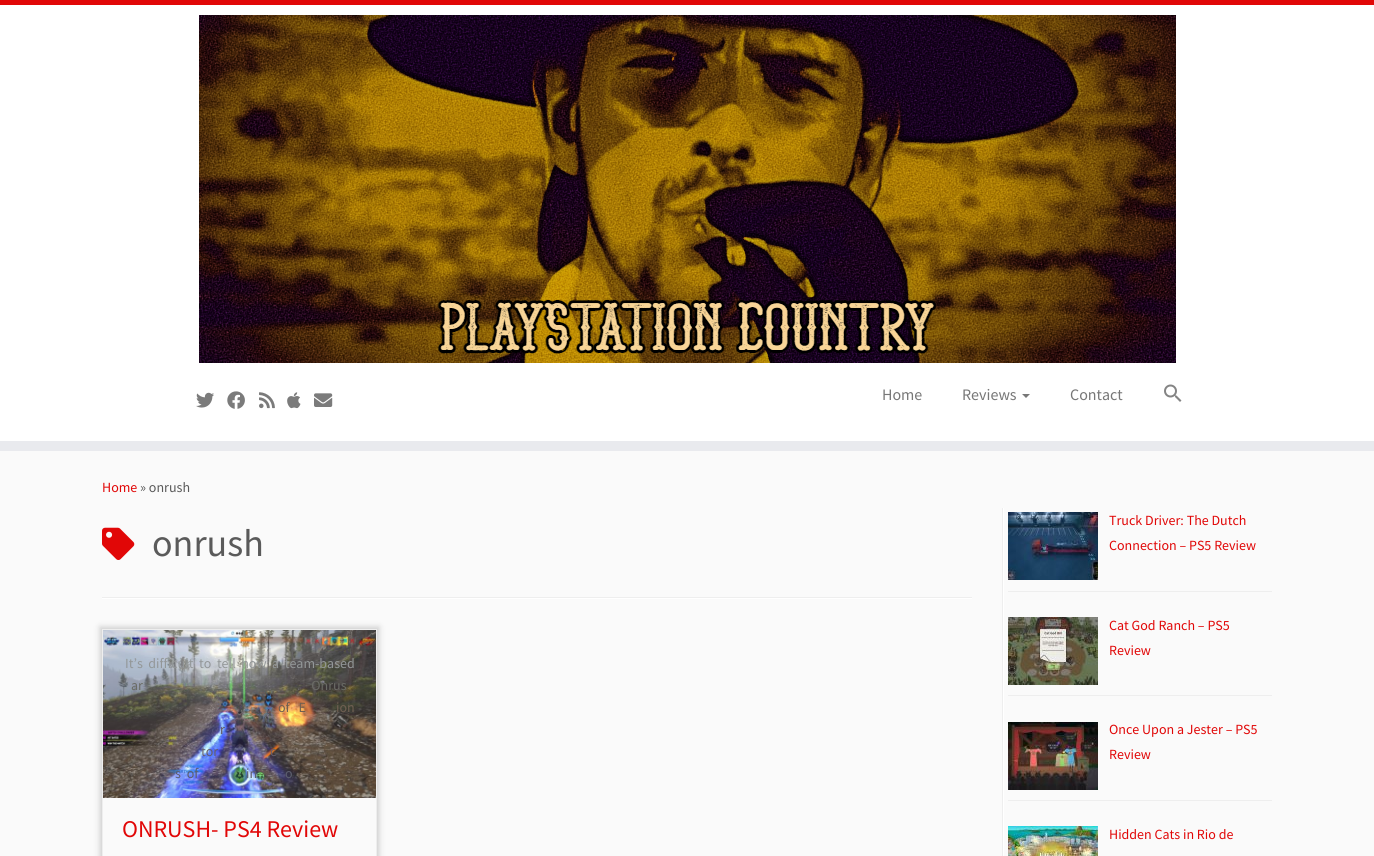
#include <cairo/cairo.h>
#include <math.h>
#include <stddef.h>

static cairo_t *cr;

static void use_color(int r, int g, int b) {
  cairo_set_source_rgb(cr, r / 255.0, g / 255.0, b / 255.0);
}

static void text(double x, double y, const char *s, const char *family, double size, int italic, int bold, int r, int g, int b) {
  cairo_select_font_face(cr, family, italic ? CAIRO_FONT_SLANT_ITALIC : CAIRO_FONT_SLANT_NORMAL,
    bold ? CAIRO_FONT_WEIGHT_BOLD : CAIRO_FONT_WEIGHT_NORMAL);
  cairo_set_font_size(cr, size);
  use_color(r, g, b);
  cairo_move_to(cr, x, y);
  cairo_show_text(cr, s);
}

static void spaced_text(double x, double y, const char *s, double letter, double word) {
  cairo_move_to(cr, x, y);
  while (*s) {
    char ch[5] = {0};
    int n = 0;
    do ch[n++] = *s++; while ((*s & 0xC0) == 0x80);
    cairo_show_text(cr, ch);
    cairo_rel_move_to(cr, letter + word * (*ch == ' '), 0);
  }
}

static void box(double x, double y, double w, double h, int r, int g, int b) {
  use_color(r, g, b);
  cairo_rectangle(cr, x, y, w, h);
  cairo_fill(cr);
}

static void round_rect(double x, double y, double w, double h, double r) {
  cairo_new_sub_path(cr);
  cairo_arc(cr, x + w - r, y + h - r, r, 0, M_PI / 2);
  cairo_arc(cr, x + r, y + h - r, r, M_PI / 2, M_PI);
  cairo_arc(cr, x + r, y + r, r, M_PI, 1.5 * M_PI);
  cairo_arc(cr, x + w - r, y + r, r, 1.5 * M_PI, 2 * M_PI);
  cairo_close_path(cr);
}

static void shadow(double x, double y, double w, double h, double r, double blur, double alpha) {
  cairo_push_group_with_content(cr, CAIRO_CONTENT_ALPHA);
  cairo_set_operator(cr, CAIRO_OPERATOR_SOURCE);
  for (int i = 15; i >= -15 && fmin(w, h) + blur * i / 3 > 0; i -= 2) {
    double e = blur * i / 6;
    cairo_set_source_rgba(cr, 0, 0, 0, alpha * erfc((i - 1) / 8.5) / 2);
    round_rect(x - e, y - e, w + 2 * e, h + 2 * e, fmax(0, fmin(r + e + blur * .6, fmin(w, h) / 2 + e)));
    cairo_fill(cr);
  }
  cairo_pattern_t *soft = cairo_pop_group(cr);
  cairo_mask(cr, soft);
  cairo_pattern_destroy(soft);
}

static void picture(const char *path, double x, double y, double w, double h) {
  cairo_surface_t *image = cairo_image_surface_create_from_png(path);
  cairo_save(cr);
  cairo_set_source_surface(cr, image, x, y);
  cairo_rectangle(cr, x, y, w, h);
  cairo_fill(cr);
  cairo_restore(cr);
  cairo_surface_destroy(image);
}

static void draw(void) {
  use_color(250, 250, 250);
  cairo_paint(cr);
  box(0, 5, 1374, 436, 255, 255, 255);
  box(0, 0, 1374, 5, 225, 7, 7);
  box(0, 441, 1374, 10, 233, 234, 238);
  picture("img_01.png", 199, 15, 977, 348);
  picture("img_02.png", 196, 392, 18, 16);
  picture("img_03.png", 227, 391, 18, 18);
  picture("img_04.png", 259, 392, 16, 17);
  picture("img_05.png", 287, 392, 14, 17);
  picture("img_06.png", 314, 393, 19, 14);
  use_color(119, 119, 119);
  cairo_new_path(cr);
  cairo_move_to(cr, 1022, 394);
  cairo_line_to(cr, 1030, 394);
  cairo_line_to(cr, 1026, 398);
  cairo_close_path(cr);
  cairo_fill(cr);
  picture("img_07.png", 1164, 384, 18, 18);
  picture("img_08.png", 102, 527, 33, 33);
  box(102, 597, 870, 1, 238, 238, 238);
  box(102, 598, 870, 1, 255, 255, 255);
  cairo_save(cr);
  cairo_set_fill_rule(cr, CAIRO_FILL_RULE_EVEN_ODD);
  cairo_new_path(cr);
  cairo_move_to(cr, 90, 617);
  cairo_line_to(cr, 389, 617);
  cairo_line_to(cr, 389, 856);
  cairo_line_to(cr, 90, 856);
  cairo_close_path(cr);
  cairo_move_to(cr, 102, 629);
  cairo_line_to(cr, 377, 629);
  cairo_line_to(cr, 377, 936);
  cairo_line_to(cr, 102, 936);
  cairo_close_path(cr);
  cairo_clip(cr);
  use_color(204, 204, 204);
  shadow(100, 627, 279, 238, 0, 3, 1);
  cairo_restore(cr);
  box(102, 629, 275, 1, 238, 238, 238);
  cairo_new_path(cr);
  cairo_move_to(cr, 377, 629);
  cairo_line_to(cr, 377, 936);
  cairo_line_to(cr, 376, 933);
  cairo_line_to(cr, 376, 630);
  cairo_close_path(cr);
  cairo_fill(cr);
  cairo_new_path(cr);
  cairo_move_to(cr, 102, 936);
  cairo_line_to(cr, 102, 629);
  cairo_line_to(cr, 103, 630);
  cairo_line_to(cr, 103, 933);
  cairo_close_path(cr);
  cairo_fill(cr);
  picture("img_09.png", 103, 630, 273, 168);
  box(1002, 508, 1, 348, 238, 238, 238);
  box(1003, 508, 1, 348, 255, 255, 255);
  box(1008, 591, 264, 1, 238, 238, 238);
  picture("img_10.png", 1008, 512, 90, 68);
  box(1008, 695, 264, 1, 238, 238, 238);
  picture("img_11.png", 1008, 617, 90, 68);
  box(1008, 800, 264, 1, 238, 238, 238);
  picture("img_12.png", 1008, 722, 90, 68);
  picture("img_13.png", 1008, 826, 90, 30);
  text(882, 400, "Home", "Source Sans Pro", 16, 0, 0, 119, 119, 119);
  text(962, 400, "Reviews", "Source Sans Pro", 16, 0, 0, 119, 119, 119);
  text(1070, 400, "Contact", "Source Sans Pro", 16, 0, 0, 119, 119, 119);
  text(102, 492, "Home", "Source Sans Pro", 14, 0, 0, 225, 7, 7);
  text(140, 492, "» onrush", "Source Sans Pro", 14, 0, 0, 90, 90, 90);
  text(152, 556, "onrush", "Source Sans Pro", 38, 0, 0, 90, 90, 90);
  cairo_set_font_size(cr, 14);
  use_color(147, 151, 152);
  spaced_text(125, 668, "It’s difficult to tell how a team-based", 0, 2.75);
  use_color(106, 107, 101);
  spaced_text(131, 690, "ar", 0, 8);
  spaced_text(297, 690, ". Onrus", 0, 8);
  use_color(111, 95, 81);
  spaced_text(278, 712, "of E", 0, 6);
  spaced_text(336, 712, "ion", 0, 6);
  use_color(95, 82, 90);
  spaced_text(220, 734, "r", 0, 1);
  use_color(101, 94, 108);
  spaced_text(201, 756, "tor", 0, 14);
  spaced_text(270, 756, "c", 0, 14);
  use_color(92, 94, 109);
  spaced_text(175, 778, "s of", 0, 3);
  spaced_text(246, 778, "in", 0, 3);
  spaced_text(285, 778, "o", 0, 3);
  text(122, 837, "ONRUSH- PS4 Review", "Source Sans Pro", 24, 0, 0, 225, 7, 7);
  text(1109, 525, "Truck Driver: The Dutch", "Source Sans Pro", 14, 0, 0, 225, 7, 7);
  text(1109, 550, "Connection – PS5 Review", "Source Sans Pro", 14, 0, 0, 225, 7, 7);
  text(1109, 630, "Cat God Ranch – PS5", "Source Sans Pro", 14, 0, 0, 225, 7, 7);
  text(1109, 655, "Review", "Source Sans Pro", 14, 0, 0, 225, 7, 7);
  text(1109, 734, "Once Upon a Jester – PS5", "Source Sans Pro", 14, 0, 0, 225, 7, 7);
  text(1109, 759, "Review", "Source Sans Pro", 14, 0, 0, 225, 7, 7);
  text(1109, 839, "Hidden Cats in Rio de", "Source Sans Pro", 14, 0, 0, 225, 7, 7);
}

int main(void) {
  cairo_surface_t *surface = cairo_image_surface_create(CAIRO_FORMAT_RGB24, 1374, 856);
  cr = cairo_create(surface);
  cairo_font_options_t *options = cairo_font_options_create();
  cairo_font_options_set_hint_metrics(options, CAIRO_HINT_METRICS_OFF);
  cairo_font_options_set_hint_style(options, CAIRO_HINT_STYLE_NONE);
  cairo_set_font_options(cr, options);
  cairo_set_miter_limit(cr, 4);
  draw();
  cairo_surface_write_to_png(surface, "out.png");
  cairo_font_options_destroy(options);
  cairo_destroy(cr);
  cairo_surface_destroy(surface);
  return 0;
}
